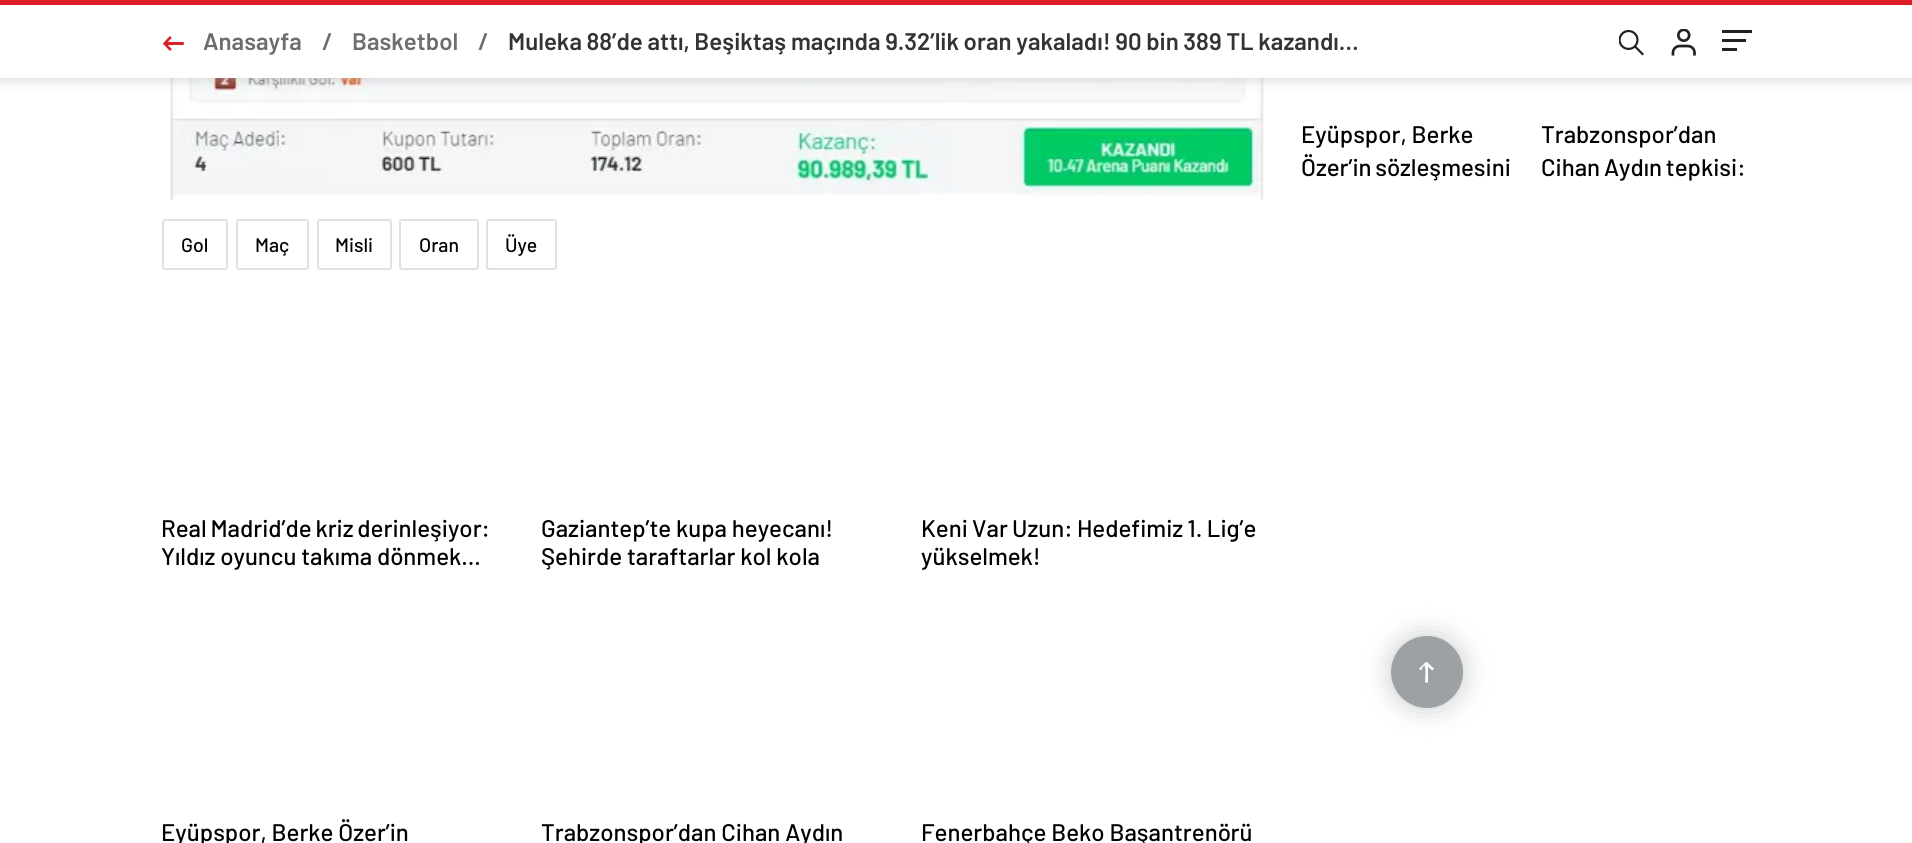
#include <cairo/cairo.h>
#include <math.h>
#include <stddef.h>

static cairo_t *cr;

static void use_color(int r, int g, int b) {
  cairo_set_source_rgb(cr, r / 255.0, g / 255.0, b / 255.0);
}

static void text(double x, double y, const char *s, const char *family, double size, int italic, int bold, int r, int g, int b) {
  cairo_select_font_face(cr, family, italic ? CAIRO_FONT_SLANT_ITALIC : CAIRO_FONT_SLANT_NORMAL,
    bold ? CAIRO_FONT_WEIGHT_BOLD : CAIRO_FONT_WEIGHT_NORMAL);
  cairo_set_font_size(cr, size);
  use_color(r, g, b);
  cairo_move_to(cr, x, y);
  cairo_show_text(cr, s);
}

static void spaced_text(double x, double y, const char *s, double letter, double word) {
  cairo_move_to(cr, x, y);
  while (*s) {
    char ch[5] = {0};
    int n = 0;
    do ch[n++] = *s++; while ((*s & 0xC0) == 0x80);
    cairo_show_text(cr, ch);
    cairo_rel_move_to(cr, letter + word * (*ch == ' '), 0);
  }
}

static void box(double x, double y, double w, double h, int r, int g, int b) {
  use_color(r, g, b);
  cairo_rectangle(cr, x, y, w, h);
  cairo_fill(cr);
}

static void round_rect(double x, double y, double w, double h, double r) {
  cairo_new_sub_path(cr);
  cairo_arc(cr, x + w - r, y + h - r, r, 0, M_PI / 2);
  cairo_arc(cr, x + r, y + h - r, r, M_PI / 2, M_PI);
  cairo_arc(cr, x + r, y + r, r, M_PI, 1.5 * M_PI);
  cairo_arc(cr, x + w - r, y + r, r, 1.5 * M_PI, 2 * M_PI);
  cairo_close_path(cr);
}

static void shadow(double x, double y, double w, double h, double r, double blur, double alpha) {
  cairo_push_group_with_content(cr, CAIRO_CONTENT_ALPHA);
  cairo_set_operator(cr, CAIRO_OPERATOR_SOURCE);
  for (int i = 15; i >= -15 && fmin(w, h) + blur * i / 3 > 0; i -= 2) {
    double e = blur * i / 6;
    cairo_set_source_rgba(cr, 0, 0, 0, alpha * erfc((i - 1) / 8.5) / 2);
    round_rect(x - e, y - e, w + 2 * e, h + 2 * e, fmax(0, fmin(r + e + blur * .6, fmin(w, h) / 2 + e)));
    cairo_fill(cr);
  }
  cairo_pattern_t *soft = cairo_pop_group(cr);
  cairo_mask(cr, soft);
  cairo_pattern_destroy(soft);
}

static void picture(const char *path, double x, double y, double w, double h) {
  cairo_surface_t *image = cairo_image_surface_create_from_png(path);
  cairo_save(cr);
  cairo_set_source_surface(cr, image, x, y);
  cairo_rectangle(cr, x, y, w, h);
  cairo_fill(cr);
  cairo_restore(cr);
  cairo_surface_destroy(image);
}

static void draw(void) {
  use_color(255, 255, 255);
  cairo_paint(cr);
  picture("img_04.png", 170, 78, 1094, 122);
  use_color(186, 186, 186);
  shadow(0, 2, 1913, 78, 0, 6, 0.58);
  box(0, 5, 1912, 73, 255, 255, 255);
  box(0, 0, 1912, 5, 219, 32, 39);
  picture("img_01.png", 162, 36, 22, 15);
  picture("img_02.png", 1619, 29, 25, 27);
  picture("img_03.png", 1671, 29, 25, 27);
  box(1722, 30, 30, 3, 34, 34, 34);
  box(1722, 39, 24, 3, 34, 34, 34);
  box(1722, 48, 15, 3, 34, 34, 34);
  round_rect(163, 220, 64, 49, 2);
  use_color(225, 225, 225);
  cairo_stroke(cr);
  round_rect(237, 220, 71, 49, 2);
  cairo_stroke(cr);
  round_rect(318, 220, 73, 49, 2);
  cairo_stroke(cr);
  round_rect(400, 220, 78, 49, 2);
  cairo_stroke(cr);
  round_rect(487, 220, 69, 49, 2);
  cairo_stroke(cr);
  use_color(157, 161, 164);
  shadow(1391, 636, 72, 72, 36, 13.5, 0.54);
  use_color(157, 161, 164);
  cairo_arc(cr, 1427, 672, 36, 0, 2 * M_PI);
  cairo_fill(cr);
  picture("img_05.png", 1419, 662, 15, 21);
  text(203, 50, "Anasayfa", "Barlow SemiBold", 24, 0, 0, 109, 109, 109);
  text(322, 50, "/", "Barlow SemiBold", 24, 0, 0, 109, 109, 109);
  text(352, 50, "Basketbol", "Barlow SemiBold", 24, 0, 0, 109, 109, 109);
  text(478, 50, "/", "Barlow SemiBold", 24, 0, 0, 109, 109, 109);
  use_color(51, 51, 51);
  spaced_text(508, 50, "Muleka 88’de attı, Beşiktaş maçında 9.32’lik oran yakaladı! 90 bin 389 TL kazandı…", 0, -0.2);
  text(1301, 143, "Eyüpspor, Berke", "Barlow Medium", 24, 0, 0, 0, 0, 0);
  spaced_text(1301, 176, "Özer’in sözleşmesini", 0, -1);
  text(1541, 143, "Trabzonspor’dan", "Barlow Medium", 24, 0, 0, 0, 0, 0);
  spaced_text(1541, 176, "Cihan Aydın tepkisi:", 0, -1);
  text(181, 252, "Gol", "Barlow Medium", 19.5, 0, 0, 0, 0, 0);
  text(255, 252, "Maç", "Barlow Medium", 19.5, 0, 0, 0, 0, 0);
  text(335, 252, "Misli", "Barlow Medium", 19.5, 0, 0, 0, 0, 0);
  text(419, 252, "Oran", "Barlow Medium", 19.5, 0, 0, 0, 0, 0);
  text(505, 252, "Üye", "Barlow Medium", 19.5, 0, 0, 0, 0, 0);
  cairo_set_font_size(cr, 24);
  spaced_text(161, 537, "Real Madrid’de kriz derinleşiyor:", 0, -1);
  text(161, 565, "Yıldız oyuncu takıma dönmek…", "Barlow Medium", 24, 0, 0, 0, 0, 0);
  text(541, 537, "Gaziantep’te kupa heyecanı!", "Barlow Medium", 24, 0, 0, 0, 0, 0);
  text(541, 565, "Şehirde taraftarlar kol kola", "Barlow Medium", 24, 0, 0, 0, 0, 0);
  spaced_text(921, 537, "Keni Var Uzun: Hedefimiz 1. Lig’e", 0, -0.5);
  text(921, 565, "yükselmek!", "Barlow Medium", 24, 0, 0, 0, 0, 0);
  text(161, 841, "Eyüpspor, Berke Özer’in", "Barlow Medium", 24, 0, 0, 0, 0, 0);
  text(541, 841, "Trabzonspor’dan Cihan Aydın", "Barlow Medium", 24, 0, 0, 0, 0, 0);
  text(921, 841, "Fenerbahçe Beko Başantrenörü", "Barlow Medium", 24, 0, 0, 0, 0, 0);
}

int main(void) {
  cairo_surface_t *surface = cairo_image_surface_create(CAIRO_FORMAT_RGB24, 1912, 843);
  cr = cairo_create(surface);
  cairo_font_options_t *options = cairo_font_options_create();
  cairo_font_options_set_hint_metrics(options, CAIRO_HINT_METRICS_OFF);
  cairo_font_options_set_hint_style(options, CAIRO_HINT_STYLE_NONE);
  cairo_set_font_options(cr, options);
  cairo_set_miter_limit(cr, 4);
  draw();
  cairo_surface_write_to_png(surface, "out.png");
  cairo_font_options_destroy(options);
  cairo_destroy(cr);
  cairo_surface_destroy(surface);
  return 0;
}
